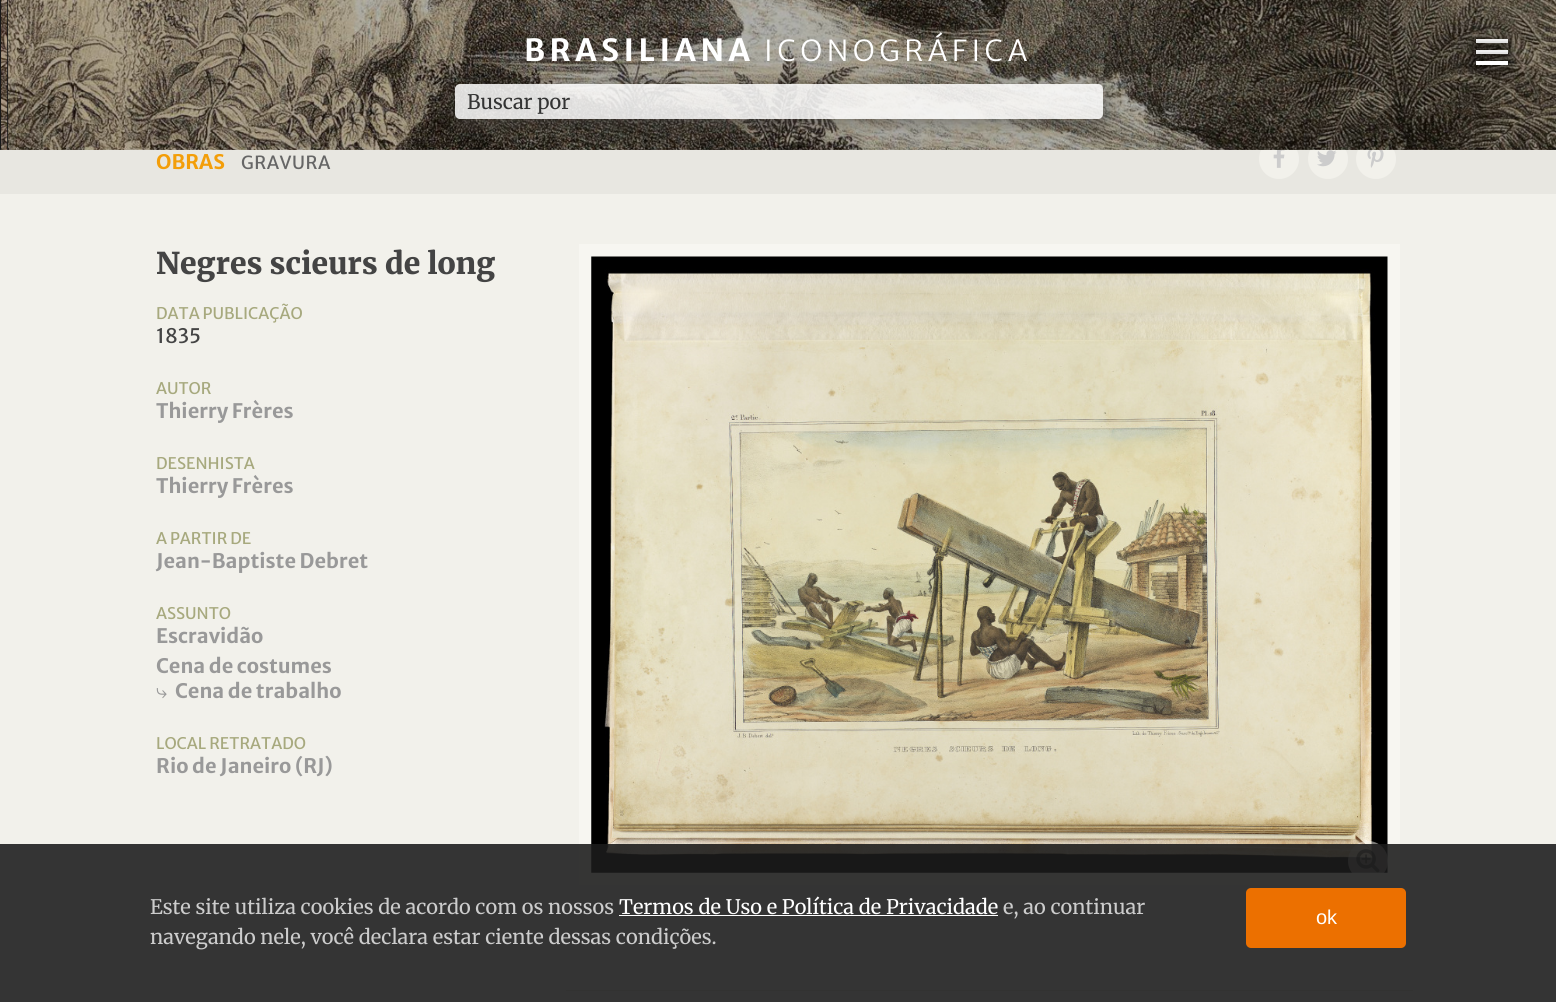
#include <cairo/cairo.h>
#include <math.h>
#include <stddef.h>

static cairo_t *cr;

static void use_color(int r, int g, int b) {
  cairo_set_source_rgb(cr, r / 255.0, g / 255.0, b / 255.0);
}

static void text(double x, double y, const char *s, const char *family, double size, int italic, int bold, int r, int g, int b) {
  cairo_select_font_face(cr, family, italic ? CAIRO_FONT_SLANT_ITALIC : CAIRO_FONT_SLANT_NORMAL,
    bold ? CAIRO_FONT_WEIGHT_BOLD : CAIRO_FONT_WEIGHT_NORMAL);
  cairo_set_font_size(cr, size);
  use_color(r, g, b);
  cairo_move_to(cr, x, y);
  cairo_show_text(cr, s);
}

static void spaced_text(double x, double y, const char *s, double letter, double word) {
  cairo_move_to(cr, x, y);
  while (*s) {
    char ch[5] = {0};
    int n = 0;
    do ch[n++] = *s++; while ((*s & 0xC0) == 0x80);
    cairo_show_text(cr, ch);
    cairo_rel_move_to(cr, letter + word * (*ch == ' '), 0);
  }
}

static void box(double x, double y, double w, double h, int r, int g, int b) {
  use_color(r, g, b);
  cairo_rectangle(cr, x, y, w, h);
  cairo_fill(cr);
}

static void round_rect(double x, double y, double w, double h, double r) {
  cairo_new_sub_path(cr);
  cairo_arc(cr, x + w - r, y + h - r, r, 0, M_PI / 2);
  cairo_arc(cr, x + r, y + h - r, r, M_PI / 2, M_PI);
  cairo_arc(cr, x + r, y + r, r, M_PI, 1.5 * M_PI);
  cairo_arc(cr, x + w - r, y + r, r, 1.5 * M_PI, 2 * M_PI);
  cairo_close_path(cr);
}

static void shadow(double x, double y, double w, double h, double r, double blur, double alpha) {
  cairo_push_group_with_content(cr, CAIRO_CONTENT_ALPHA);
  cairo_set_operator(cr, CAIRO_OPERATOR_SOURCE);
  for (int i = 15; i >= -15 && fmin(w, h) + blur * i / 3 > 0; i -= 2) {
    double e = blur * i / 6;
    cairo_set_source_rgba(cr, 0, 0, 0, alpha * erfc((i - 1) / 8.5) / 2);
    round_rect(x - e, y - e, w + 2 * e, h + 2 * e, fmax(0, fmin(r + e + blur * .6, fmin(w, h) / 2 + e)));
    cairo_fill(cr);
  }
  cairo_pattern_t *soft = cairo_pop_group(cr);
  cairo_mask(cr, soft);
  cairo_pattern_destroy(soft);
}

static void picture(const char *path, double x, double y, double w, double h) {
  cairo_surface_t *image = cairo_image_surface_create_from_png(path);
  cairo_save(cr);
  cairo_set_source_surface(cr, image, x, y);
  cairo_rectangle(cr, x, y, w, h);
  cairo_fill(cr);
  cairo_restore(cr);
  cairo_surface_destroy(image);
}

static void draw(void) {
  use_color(242, 241, 235);
  cairo_paint(cr);
  box(0, 149, 1556, 45, 232, 231, 225);
  use_color(242, 241, 235);
  cairo_arc(cr, 1279, 159, 20, 0, 2 * M_PI);
  cairo_fill(cr);
  picture("img_02.png", 1273, 149, 12, 19);
  cairo_arc(cr, 1328, 159, 20, 0, 2 * M_PI);
  cairo_fill(cr);
  cairo_arc(cr, 1376, 159, 20, 0, 2 * M_PI);
  cairo_fill(cr);
  picture("img_04.png", 1367, 149, 17, 19);
  picture("img_01.png", 0, 0, 1556, 150);
  cairo_set_source_rgba(cr, 0, 0, 0, 0.25);
  cairo_rectangle(cr, 0, 0, 1556, 150);
  cairo_fill(cr);
  cairo_save(cr);
  cairo_set_fill_rule(cr, CAIRO_FILL_RULE_EVEN_ODD);
  cairo_new_path(cr);
  cairo_move_to(cr, 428, 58);
  cairo_line_to(cr, 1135, 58);
  cairo_line_to(cr, 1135, 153);
  cairo_line_to(cr, 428, 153);
  cairo_close_path(cr);
  cairo_move_to(cr, 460, 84);
  cairo_line_to(cr, 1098, 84);
  cairo_curve_to(cr, 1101, 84, 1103, 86, 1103, 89);
  cairo_line_to(cr, 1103, 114);
  cairo_curve_to(cr, 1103, 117, 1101, 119, 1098, 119);
  cairo_line_to(cr, 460, 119);
  cairo_curve_to(cr, 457, 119, 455, 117, 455, 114);
  cairo_line_to(cr, 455, 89);
  cairo_curve_to(cr, 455, 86, 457, 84, 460, 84);
  cairo_close_path(cr);
  cairo_clip(cr);
  use_color(76, 74, 71);
  shadow(458, 88, 647, 35, 5, 9.5, 0.58);
  cairo_restore(cr);
  cairo_set_source_rgba(cr, 1, 1, 1, 0.85);
  round_rect(455, 84, 648, 35, 5);
  cairo_fill(cr);
  use_color(0, 0, 0);
  shadow(1476, 39, 32, 4, 0, 7.5, 0.75);
  box(1476, 39, 32, 4, 255, 255, 255);
  use_color(0, 0, 0);
  shadow(1476, 50, 32, 4, 0, 7.5, 0.75);
  box(1476, 50, 32, 4, 255, 255, 255);
  use_color(0, 0, 0);
  shadow(1476, 61, 32, 4, 0, 7.5, 0.75);
  box(1476, 61, 32, 4, 255, 255, 255);
  picture("img_03.png", 1317, 150, 20, 17);
  box(579, 244, 821, 641, 247, 246, 241);
  picture("img_05.png", 591, 256, 797, 617);
  cairo_set_source_rgba(cr, 0.969, 0.965, 0.945, 0.5);
  cairo_arc(cr, 1368, 861, 20, 0, 2 * M_PI);
  cairo_fill(cr);
  picture("img_06.png", 1356, 849, 24, 24);
  box(566, 990, 847, 1, 218, 217, 211);
  cairo_set_source_rgba(cr, 0.11, 0.11, 0.11, 0.88);
  cairo_rectangle(cr, 0, 844, 1556, 158);
  cairo_fill(cr);
  box(619, 915, 379, 1, 255, 255, 255);
  use_color(236, 112, 0);
  round_rect(1246, 888, 160, 60, 5);
  cairo_fill(cr);
  cairo_select_font_face(cr, "Merriweather Sans", CAIRO_FONT_SLANT_NORMAL, CAIRO_FONT_WEIGHT_BOLD);
  cairo_set_font_size(cr, 30.5);
  use_color(255, 255, 255);
  spaced_text(524, 61, "BRASILIANA", 4.5, 0);
  cairo_select_font_face(cr, "Merriweather Sans Light", CAIRO_FONT_SLANT_NORMAL, CAIRO_FONT_WEIGHT_NORMAL);
  cairo_set_font_size(cr, 28.9);
  spaced_text(764, 61, "ICONOGRÁFICA", 4.5, 0);
  text(467, 109, "Buscar por", "Merriweather", 20, 0, 0, 51, 51, 51);
  text(156, 169, "OBRAS", "Merriweather Sans", 20, 0, 1, 243, 158, 9);
  cairo_select_font_face(cr, "Merriweather Sans", CAIRO_FONT_SLANT_NORMAL, CAIRO_FONT_WEIGHT_NORMAL);
  cairo_set_font_size(cr, 18);
  use_color(102, 102, 102);
  spaced_text(241, 169, "GRAVURA", 0.5, 0);
  text(156, 274, "Negres scieurs de long", "Merriweather Black", 30, 0, 0, 68, 68, 68);
  text(156, 319, "DATA PUBLICAÇÃO", "Merriweather Sans", 16, 0, 0, 167, 169, 126);
  text(156, 343, "1835", "Merriweather Sans", 20, 0, 0, 68, 68, 68);
  text(156, 394, "AUTOR", "Merriweather Sans", 16, 0, 0, 167, 169, 126);
  text(156, 418, "Thierry Frères", "Merriweather Sans", 20, 0, 1, 153, 153, 153);
  text(156, 469, "DESENHISTA", "Merriweather Sans", 16, 0, 0, 167, 169, 126);
  text(156, 493, "Thierry Frères", "Merriweather Sans", 20, 0, 1, 153, 153, 153);
  text(156, 544, "A PARTIR DE", "Merriweather Sans", 16, 0, 0, 167, 169, 126);
  text(156, 568, "Jean-Baptiste Debret", "Merriweather Sans", 20, 0, 1, 153, 153, 153);
  text(156, 619, "ASSUNTO", "Merriweather Sans", 16, 0, 0, 167, 169, 126);
  text(156, 643, "Escravidão", "Merriweather Sans", 20, 0, 1, 153, 153, 153);
  text(156, 673, "Cena de costumes", "Merriweather Sans", 20, 0, 1, 153, 153, 153);
  text(156, 698, "⤷", "FreeSerif", 20, 0, 0, 153, 153, 153);
  text(175, 698, "Cena de trabalho", "Merriweather Sans", 20, 0, 1, 153, 153, 153);
  text(156, 749, "LOCAL RETRATADO", "Merriweather Sans", 16, 0, 0, 167, 169, 126);
  text(156, 773, "Rio de Janeiro (RJ)", "Merriweather Sans", 20, 0, 1, 153, 153, 153);
  text(150, 914, "Este site utiliza cookies de acordo com os nossos", "Merriweather", 20, 0, 0, 204, 204, 204);
  text(619, 914, "Termos de Uso e Política de Privacidade", "Merriweather", 20, 0, 0, 255, 255, 255);
  text(1003, 914, "e, ao continuar", "Merriweather", 20, 0, 0, 204, 204, 204);
  text(150, 944, "navegando nele, você declara estar ciente dessas condições.", "Merriweather", 20, 0, 0, 204, 204, 204);
  text(1316, 924, "ok", "Liberation Sans", 20, 0, 0, 255, 255, 255);
}

int main(void) {
  cairo_surface_t *surface = cairo_image_surface_create(CAIRO_FORMAT_RGB24, 1556, 1002);
  cr = cairo_create(surface);
  cairo_font_options_t *options = cairo_font_options_create();
  cairo_font_options_set_hint_metrics(options, CAIRO_HINT_METRICS_OFF);
  cairo_font_options_set_hint_style(options, CAIRO_HINT_STYLE_NONE);
  cairo_set_font_options(cr, options);
  cairo_set_miter_limit(cr, 4);
  draw();
  cairo_surface_write_to_png(surface, "out.png");
  cairo_font_options_destroy(options);
  cairo_destroy(cr);
  cairo_surface_destroy(surface);
  return 0;
}
